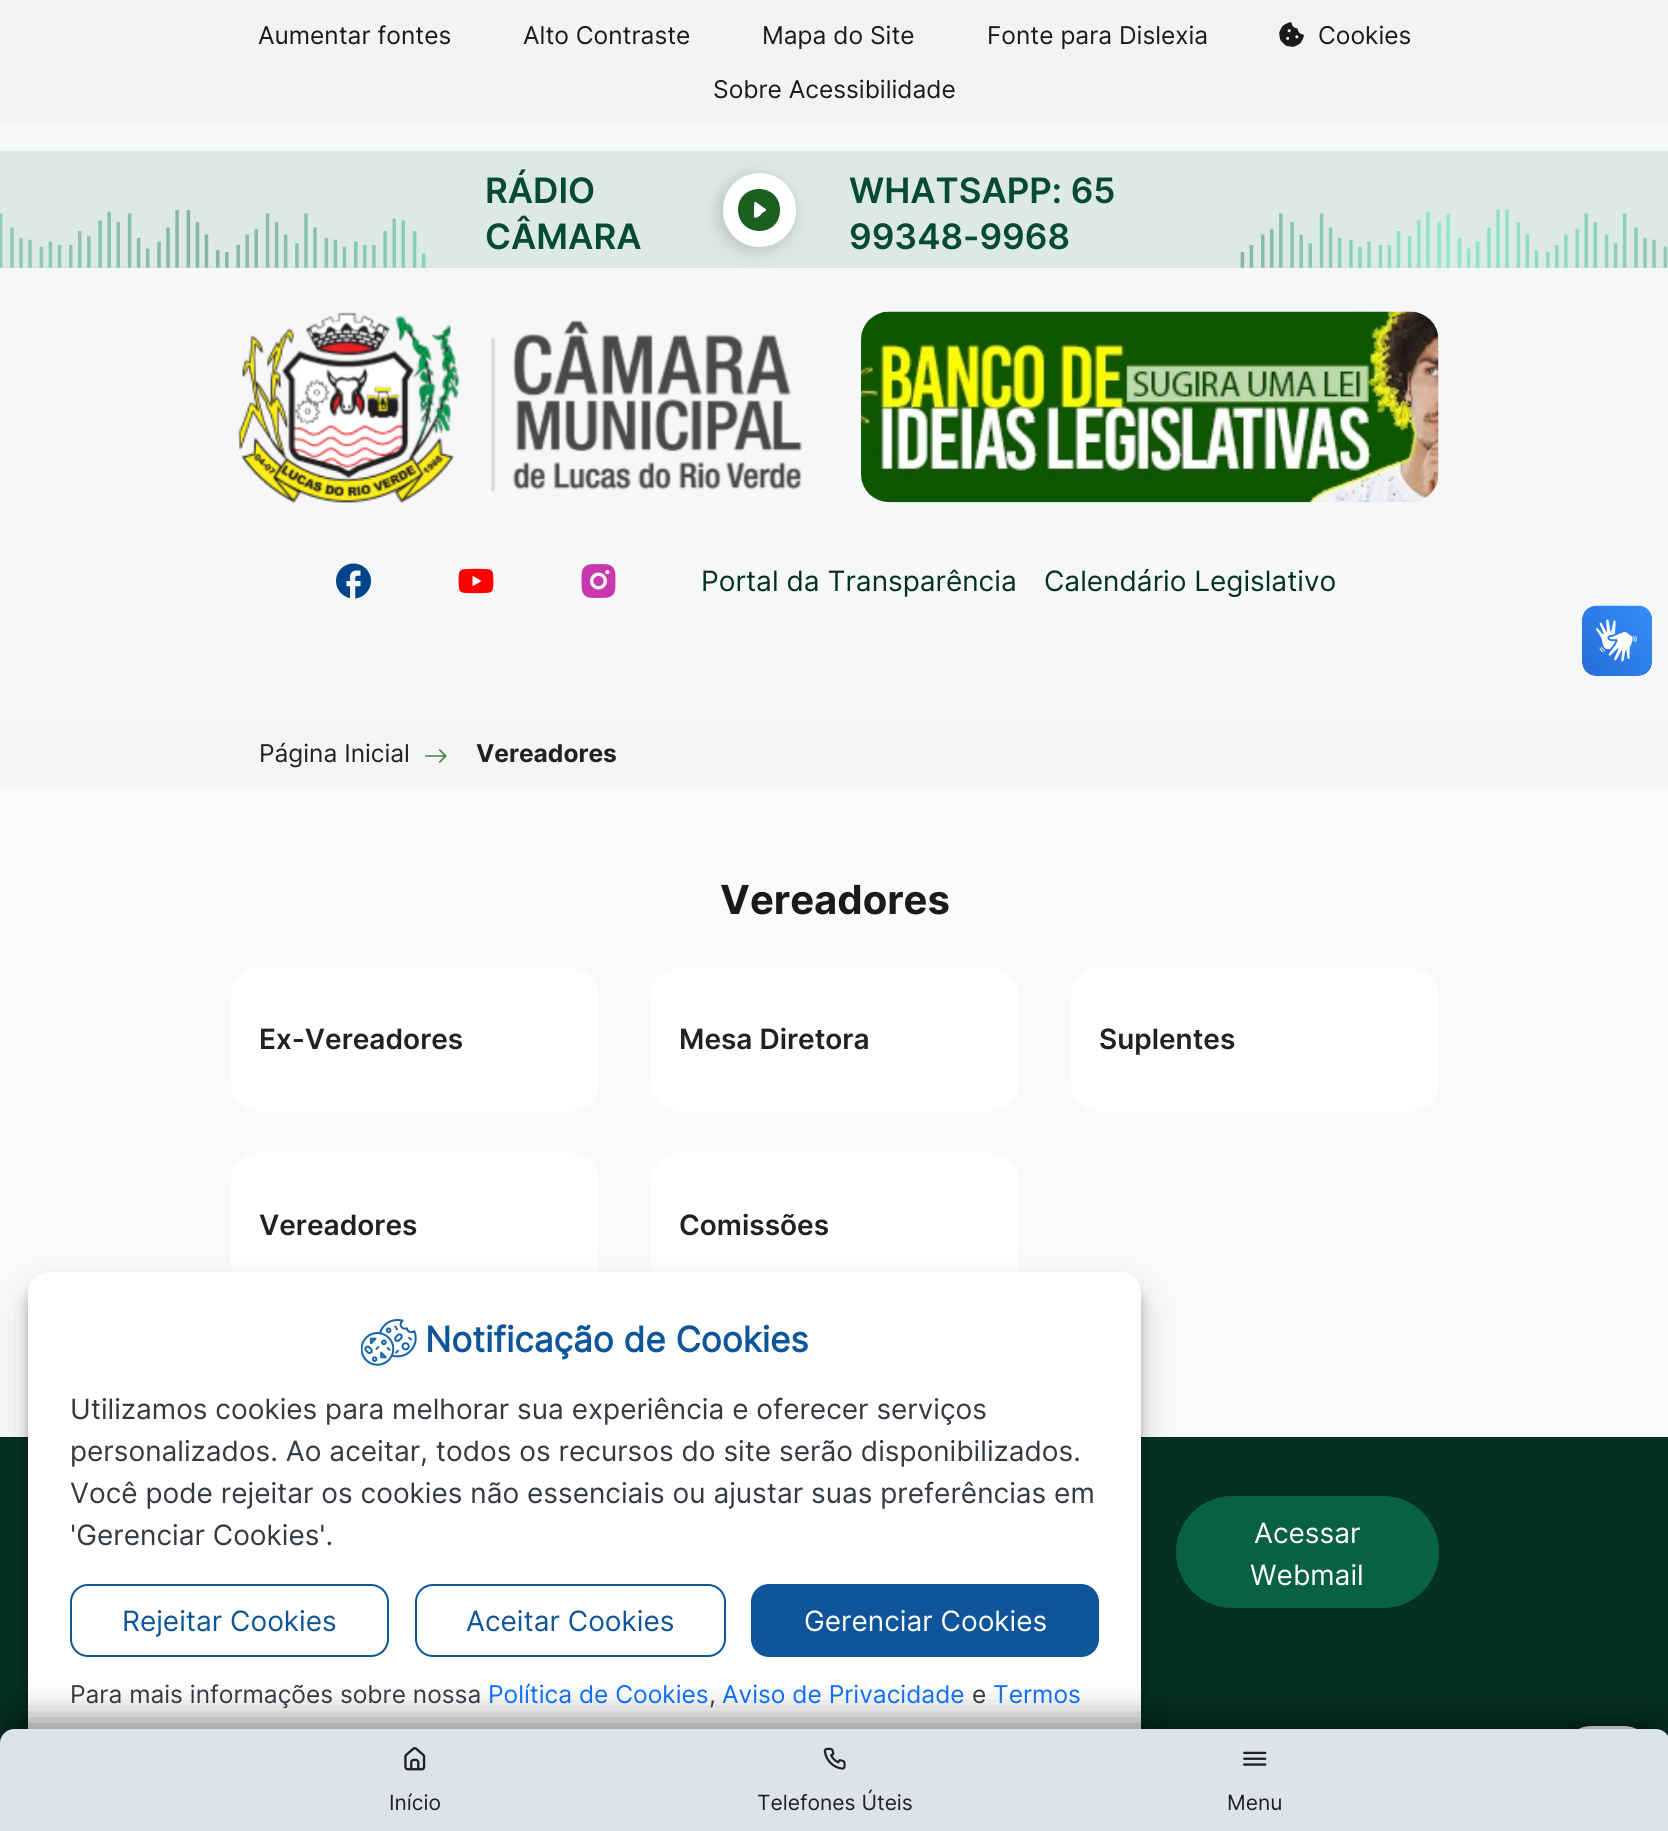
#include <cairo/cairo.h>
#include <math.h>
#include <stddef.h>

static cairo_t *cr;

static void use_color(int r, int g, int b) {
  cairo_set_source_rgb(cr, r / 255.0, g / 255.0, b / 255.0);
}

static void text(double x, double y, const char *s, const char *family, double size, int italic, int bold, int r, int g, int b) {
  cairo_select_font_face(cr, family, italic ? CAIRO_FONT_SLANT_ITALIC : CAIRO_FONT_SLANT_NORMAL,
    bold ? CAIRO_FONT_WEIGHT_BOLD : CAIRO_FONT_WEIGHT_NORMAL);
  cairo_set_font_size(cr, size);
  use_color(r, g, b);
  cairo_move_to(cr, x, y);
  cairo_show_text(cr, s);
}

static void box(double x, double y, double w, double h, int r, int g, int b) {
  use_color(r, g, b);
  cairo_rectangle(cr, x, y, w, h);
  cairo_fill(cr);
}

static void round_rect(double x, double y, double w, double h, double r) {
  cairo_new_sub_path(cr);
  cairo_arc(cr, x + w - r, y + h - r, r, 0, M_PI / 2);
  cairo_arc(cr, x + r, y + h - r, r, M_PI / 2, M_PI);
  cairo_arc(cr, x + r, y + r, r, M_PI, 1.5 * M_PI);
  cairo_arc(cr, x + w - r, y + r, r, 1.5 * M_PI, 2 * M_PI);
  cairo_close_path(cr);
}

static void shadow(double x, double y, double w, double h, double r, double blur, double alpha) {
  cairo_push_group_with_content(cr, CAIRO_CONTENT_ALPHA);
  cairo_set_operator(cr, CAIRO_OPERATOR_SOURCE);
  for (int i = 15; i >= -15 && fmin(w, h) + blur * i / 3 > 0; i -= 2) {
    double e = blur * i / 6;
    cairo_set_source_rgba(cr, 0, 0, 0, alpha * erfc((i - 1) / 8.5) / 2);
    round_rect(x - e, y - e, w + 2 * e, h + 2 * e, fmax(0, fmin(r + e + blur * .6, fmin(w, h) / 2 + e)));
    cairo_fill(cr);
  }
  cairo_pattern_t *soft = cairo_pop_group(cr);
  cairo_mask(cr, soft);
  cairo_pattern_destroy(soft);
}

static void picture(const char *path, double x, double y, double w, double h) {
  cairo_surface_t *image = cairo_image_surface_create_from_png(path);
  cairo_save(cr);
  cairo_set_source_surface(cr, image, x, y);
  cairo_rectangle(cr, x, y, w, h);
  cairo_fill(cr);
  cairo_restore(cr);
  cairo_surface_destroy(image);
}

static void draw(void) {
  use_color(250, 250, 250);
  cairo_paint(cr);
  box(0, 0, 1668, 123, 243, 243, 243);
  picture("img_01.png", 1279, 22, 25, 25);
  box(0, 123, 1668, 598, 246, 247, 248);
  box(0, 151, 1668, 117, 220, 233, 229);
  picture("img_02.png", 0, 210, 432, 58);
  use_color(0, 0, 0);
  shadow(719, 177, 74, 73, 36.5, 9, 0.17);
  use_color(255, 255, 255);
  round_rect(723, 173, 73, 74, 36.5);
  cairo_fill(cr);
  use_color(27, 94, 32);
  cairo_new_path(cr);
  cairo_move_to(cr, 780, 210);
  cairo_curve_to(cr, 780, 238, 739, 238, 738, 210);
  cairo_curve_to(cr, 738, 182, 780, 182, 780, 210);
  cairo_close_path(cr);
  cairo_move_to(cr, 756, 202);
  cairo_curve_to(cr, 754, 201, 754, 204, 754, 210);
  cairo_line_to(cr, 754, 217);
  cairo_curve_to(cr, 756, 220, 762, 214, 762, 213);
  cairo_curve_to(cr, 766, 211, 768, 210, 764, 208);
  cairo_close_path(cr);
  cairo_fill(cr);
  picture("img_03.png", 1237, 210, 431, 58);
  picture("img_04.png", 237, 312, 566, 191);
  picture("img_05.png", 861, 311, 578, 192);
  picture("img_06.png", 336, 563, 35, 36);
  picture("img_07.png", 458, 568, 36, 26);
  picture("img_08.png", 581, 564, 35, 34);
  box(0, 721, 1668, 68, 245, 245, 245);
  picture("img_09.png", 425, 749, 22, 14);
  use_color(255, 255, 255);
  round_rect(231, 1153, 368, 144, 28);
  cairo_fill(cr);
  round_rect(651, 1153, 368, 144, 28);
  cairo_fill(cr);
  box(0, 1437, 1668, 306, 4, 49, 35);
  use_color(0, 0, 0);
  shadow(28, 1283, 1113, 518, 21, 5, 0.23);
  use_color(8, 97, 69);
  round_rect(1176, 1496, 263, 112, 56);
  cairo_fill(cr);
  use_color(0, 0, 0);
  shadow(28, 1290, 1113, 518, 21, 17.5, 0.19);
  use_color(255, 255, 255);
  round_rect(28, 1272, 1113, 518, 21);
  cairo_fill(cr);
  use_color(0, 0, 0);
  shadow(1563, 1743, 89, 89, 28, 17.5, 0.19);
  use_color(255, 255, 255);
  round_rect(1563, 1726, 89, 89, 28);
  cairo_fill(cr);
  use_color(0, 0, 0);
  shadow(12, 1720, 1649, 83, 4, 17.5, 0.49);
  use_color(220, 227, 237);
  cairo_new_path(cr);
  cairo_move_to(cr, 14, 1729);
  cairo_line_to(cr, 1656, 1729);
  cairo_curve_to(cr, 1663.5, 1729, 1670, 1735.5, 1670, 1743);
  cairo_line_to(cr, 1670, 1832);
  cairo_line_to(cr, 0, 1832);
  cairo_line_to(cr, 0, 1743);
  cairo_curve_to(cr, 0, 1735.5, 6.5, 1729, 14, 1729);
  cairo_close_path(cr);
  cairo_fill(cr);
  picture("img_10.png", 404, 1747, 22, 24);
  picture("img_11.png", 823, 1747, 23, 23);
  picture("img_12.png", 1243, 1751, 24, 15);
  picture("img_13.png", 1582, 605, 70, 71);
  picture("img_14.png", 1582, 606, 70, 70);
  use_color(255, 255, 255);
  round_rect(231, 968, 368, 143, 28);
  cairo_fill(cr);
  round_rect(651, 968, 368, 143, 28);
  cairo_fill(cr);
  round_rect(1071, 968, 368, 143, 28);
  cairo_fill(cr);
  picture("img_15.png", 361, 1319, 56, 47);
  round_rect(71, 1585, 317, 71, 17);
  use_color(14, 86, 153);
  cairo_stroke(cr);
  round_rect(416, 1585, 309, 71, 17);
  cairo_stroke(cr);
  round_rect(752, 1585, 346, 71, 17);
  cairo_fill_preserve(cr);
  cairo_stroke(cr);
  text(258, 44, "Aumentar fontes", "Inter", 24.5, 0, 0, 26, 26, 26);
  text(523, 44, "Alto Contraste", "Inter", 24.5, 0, 0, 26, 26, 26);
  text(762, 44, "Mapa do Site", "Inter", 24.5, 0, 0, 26, 26, 26);
  text(987, 44, "Fonte para Dislexia", "Inter", 24.5, 0, 0, 26, 26, 26);
  text(1318, 44, "Cookies", "Inter", 24.5, 0, 0, 26, 26, 26);
  text(713, 98, "Sobre Acessibilidade", "Inter", 24.5, 0, 0, 26, 26, 26);
  text(485, 203, "RÁDIO", "Inter SemiBold", 35, 0, 0, 6, 73, 52);
  text(485, 249, "CÂMARA", "Inter SemiBold", 35, 0, 0, 6, 73, 52);
  text(849, 203, "WHATSAPP: 65", "Inter SemiBold", 35, 0, 0, 6, 73, 52);
  text(849, 249, "99348-9968", "Inter SemiBold", 35, 0, 0, 6, 73, 52);
  text(701, 591, "Portal da Transparência", "Inter", 28, 0, 0, 4, 49, 35);
  text(1044, 591, "Calendário Legislativo", "Inter", 28, 0, 0, 4, 49, 35);
  text(259, 762, "Página Inicial", "Inter", 24.5, 0, 0, 33, 33, 33);
  text(476, 762, "Vereadores", "Inter", 24.5, 0, 1, 33, 33, 33);
  text(389, 1810, "Início", "Inter", 21, 0, 0, 33, 33, 33);
  text(757, 1810, "Telefones Úteis", "Inter", 21, 0, 0, 33, 33, 33);
  text(1227, 1810, "Menu", "Inter", 21, 0, 0, 33, 33, 33);
  text(720, 914, "Vereadores", "Inter", 40, 0, 1, 26, 26, 26);
  text(259, 1049, "Ex-Vereadores", "Inter SemiBold", 28, 0, 0, 33, 33, 33);
  text(679, 1049, "Mesa Diretora", "Inter SemiBold", 28, 0, 0, 33, 33, 33);
  text(1099, 1049, "Suplentes", "Inter SemiBold", 28, 0, 0, 33, 33, 33);
  text(259, 1235, "Vereadores", "Inter SemiBold", 28, 0, 0, 33, 33, 33);
  text(679, 1235, "Comissões", "Inter SemiBold", 28, 0, 0, 33, 33, 33);
  text(425, 1352, "Notificação de Cookies", "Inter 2", 35, 0, 1, 14, 86, 153);
  text(70, 1419, "Utilizamos cookies para melhorar sua experiência e oferecer serviços", "Inter", 28, 0, 0, 52, 58, 64);
  text(70, 1461, "personalizados. Ao aceitar, todos os recursos do site serão disponibilizados.", "Inter", 28, 0, 0, 52, 58, 64);
  text(70, 1503, "Você pode rejeitar os cookies não essenciais ou ajustar suas preferências em", "Inter", 28, 0, 0, 52, 58, 64);
  text(70, 1545, "'Gerenciar Cookies'.", "Inter", 28, 0, 0, 52, 58, 64);
  text(122, 1631, "Rejeitar Cookies", "Inter", 28, 0, 0, 14, 86, 153);
  text(466, 1631, "Aceitar Cookies", "Inter", 28, 0, 0, 14, 86, 153);
  text(804, 1631, "Gerenciar Cookies", "Inter", 28, 0, 0, 255, 255, 255);
  text(70, 1703, "Para mais informações sobre nossa", "Inter", 24.5, 0, 0, 52, 58, 64);
  text(488, 1703, "Política de Cookies", "Inter", 24.5, 0, 0, 13, 110, 253);
  text(709, 1703, ",", "Inter", 24.5, 0, 0, 52, 58, 64);
  text(722, 1703, "Aviso de Privacidade", "Inter", 24.5, 0, 0, 13, 110, 253);
  text(972, 1703, "e", "Inter", 24.5, 0, 0, 52, 58, 64);
  text(993, 1703, "Termos", "Inter", 24.5, 0, 0, 13, 110, 253);
  text(1254, 1543, "Acessar", "Inter", 28, 0, 0, 255, 255, 255);
  text(1250, 1585, "Webmail", "Inter", 28, 0, 0, 255, 255, 255);
}

int main(void) {
  cairo_surface_t *surface = cairo_image_surface_create(CAIRO_FORMAT_RGB24, 1668, 1831);
  cr = cairo_create(surface);
  cairo_font_options_t *options = cairo_font_options_create();
  cairo_font_options_set_hint_metrics(options, CAIRO_HINT_METRICS_OFF);
  cairo_font_options_set_hint_style(options, CAIRO_HINT_STYLE_NONE);
  cairo_set_font_options(cr, options);
  cairo_set_miter_limit(cr, 4);
  draw();
  cairo_surface_write_to_png(surface, "out.png");
  cairo_font_options_destroy(options);
  cairo_destroy(cr);
  cairo_surface_destroy(surface);
  return 0;
}
